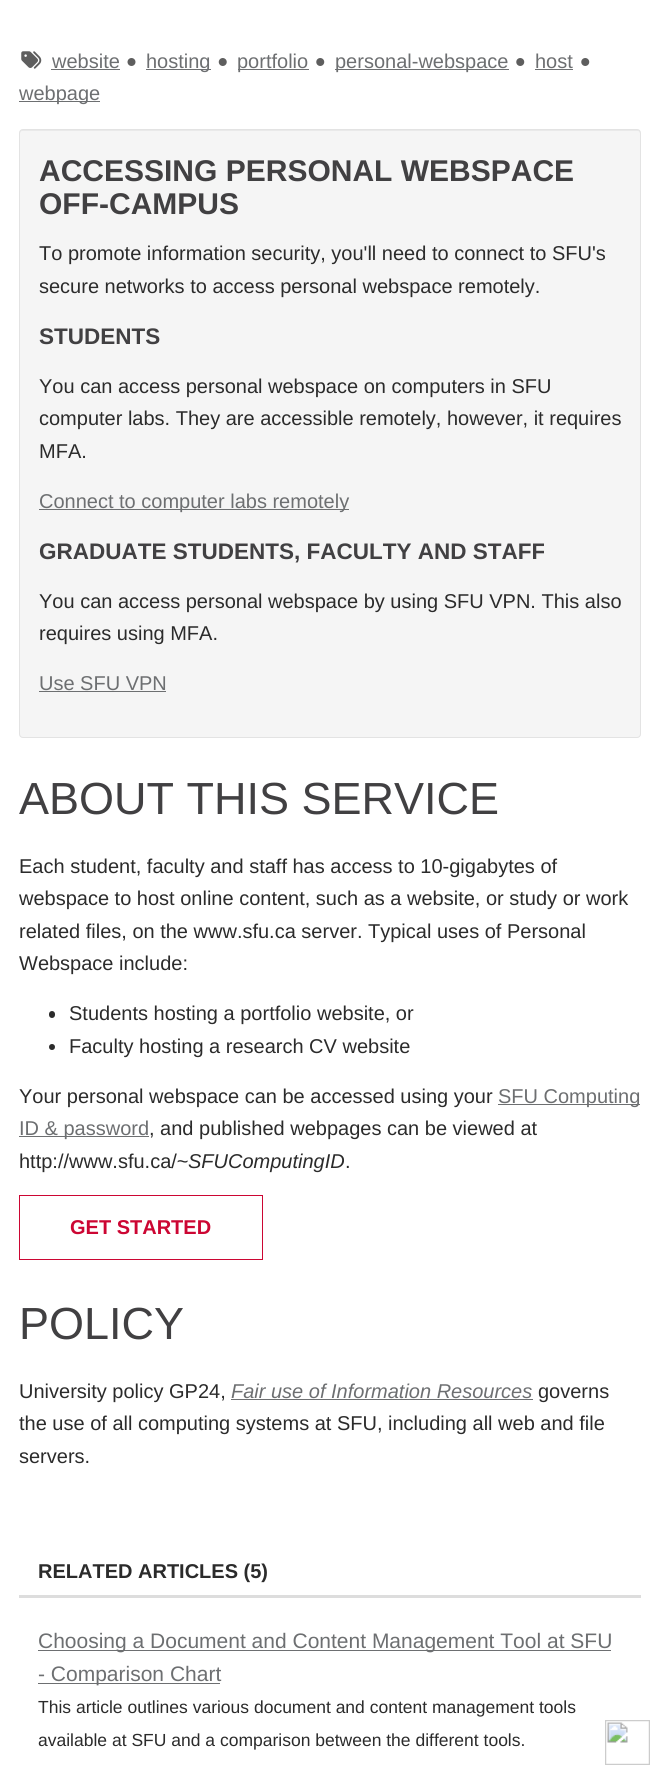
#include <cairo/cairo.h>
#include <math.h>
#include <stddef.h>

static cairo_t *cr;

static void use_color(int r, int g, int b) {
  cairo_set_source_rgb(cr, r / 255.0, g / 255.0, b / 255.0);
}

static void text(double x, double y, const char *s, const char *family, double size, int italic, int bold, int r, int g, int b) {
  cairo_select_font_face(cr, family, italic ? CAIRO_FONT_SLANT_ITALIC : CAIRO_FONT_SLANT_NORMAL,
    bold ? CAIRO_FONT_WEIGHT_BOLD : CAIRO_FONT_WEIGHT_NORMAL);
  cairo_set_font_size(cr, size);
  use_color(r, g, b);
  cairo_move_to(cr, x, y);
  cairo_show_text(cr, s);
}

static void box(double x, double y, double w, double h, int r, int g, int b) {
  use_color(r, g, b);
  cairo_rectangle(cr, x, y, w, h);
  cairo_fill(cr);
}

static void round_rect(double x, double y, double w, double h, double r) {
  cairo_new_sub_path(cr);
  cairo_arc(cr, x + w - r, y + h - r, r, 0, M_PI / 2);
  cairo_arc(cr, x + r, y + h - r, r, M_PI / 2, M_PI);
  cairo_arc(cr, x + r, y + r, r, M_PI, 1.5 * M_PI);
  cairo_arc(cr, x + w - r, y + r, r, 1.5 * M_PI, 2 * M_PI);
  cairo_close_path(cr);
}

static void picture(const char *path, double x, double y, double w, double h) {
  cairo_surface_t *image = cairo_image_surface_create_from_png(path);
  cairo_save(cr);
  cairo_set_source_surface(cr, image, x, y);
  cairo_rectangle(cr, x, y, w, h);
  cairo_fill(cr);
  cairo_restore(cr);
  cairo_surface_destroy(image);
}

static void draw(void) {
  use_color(255, 255, 255);
  cairo_paint(cr);
  picture("img_01.png", 21, 51, 21, 18);
  box(51, 69, 69, 1, 109, 111, 113);
  picture("img_02.png", 127, 58, 9, 8);
  box(146, 69, 65, 1, 109, 111, 113);
  picture("img_03.png", 218, 58, 9, 8);
  box(238, 69, 71, 1, 109, 111, 113);
  picture("img_04.png", 316, 58, 9, 8);
  box(335, 69, 174, 1, 109, 111, 113);
  picture("img_04.png", 516, 58, 9, 8);
  box(535, 69, 38, 1, 109, 111, 113);
  picture("img_04.png", 581, 58, 9, 8);
  box(19, 101, 81, 1, 109, 111, 113);
  use_color(245, 245, 245);
  round_rect(19, 129, 622, 609, 4);
  cairo_fill(cr);
  use_color(233, 233, 233);
  cairo_new_path(cr);
  cairo_move_to(cr, 22, 131);
  cairo_line_to(cr, 638, 131);
  cairo_curve_to(cr, 639, 131, 640, 132, 640, 134);
  cairo_line_to(cr, 640, 132);
  cairo_curve_to(cr, 640, 131, 639, 130, 638, 130);
  cairo_line_to(cr, 22, 130);
  cairo_curve_to(cr, 21, 130, 20, 131, 20, 132);
  cairo_line_to(cr, 20, 134);
  cairo_curve_to(cr, 20, 132, 21, 131, 22, 131);
  cairo_close_path(cr);
  cairo_fill(cr);
  round_rect(19.5, 129.5, 621, 608, 3.5);
  use_color(227, 227, 227);
  cairo_set_line_width(cr, 1);
  cairo_stroke(cr);
  box(39, 509, 310, 1, 109, 111, 113);
  box(39, 691, 127, 1, 109, 111, 113);
  use_color(43, 43, 43);
  round_rect(49, 1011, 6, 7, 3);
  cairo_fill(cr);
  cairo_arc(cr, 52, 1047, 3, 0, 2 * M_PI);
  cairo_fill(cr);
  box(498, 1104, 142, 1, 109, 111, 113);
  box(19, 1136, 130, 1, 109, 111, 113);
  cairo_rectangle(cr, 19.5, 1195.5, 243, 64);
  use_color(204, 6, 51);
  cairo_stroke(cr);
  box(231, 1399, 302, 1, 109, 111, 113);
  box(19, 1595, 622, 3, 221, 221, 221);
  box(38, 1650, 573, 1, 109, 111, 113);
  box(38, 1683, 182, 1, 109, 111, 113);
  picture("img_05.png", 605, 1720, 45, 45);
  text(52, 68, "website", "Liberation Sans", 20, 0, 0, 109, 111, 113);
  text(146, 68, "hosting", "Liberation Sans", 20, 0, 0, 109, 111, 113);
  text(237, 68, "portfolio", "Liberation Sans", 20, 0, 0, 109, 111, 113);
  text(335, 68, "personal-webspace", "Liberation Sans", 20, 0, 0, 109, 111, 113);
  text(535, 68, "host", "Liberation Sans", 20, 0, 0, 109, 111, 113);
  text(19, 100, "webpage", "Liberation Sans", 20, 0, 0, 109, 111, 113);
  text(39, 181, "ACCESSING PERSONAL WEBSPACE", "Liberation Sans", 30, 0, 1, 65, 64, 66);
  text(39, 214, "OFF-CAMPUS", "Liberation Sans", 30, 0, 1, 65, 64, 66);
  text(39, 260, "To promote information security, you'll need to connect to SFU's", "Liberation Sans", 20, 0, 0, 43, 43, 43);
  text(39, 293, "secure networks to access personal webspace remotely.", "Liberation Sans", 20, 0, 0, 43, 43, 43);
  text(39, 344, "STUDENTS", "Liberation Sans", 22.5, 0, 1, 65, 64, 66);
  text(39, 393, "You can access personal webspace on computers in SFU", "Liberation Sans", 20, 0, 0, 43, 43, 43);
  text(39, 425, "computer labs. They are accessible remotely, however, it requires", "Liberation Sans", 20, 0, 0, 43, 43, 43);
  text(39, 458, "MFA.", "Liberation Sans", 20, 0, 0, 43, 43, 43);
  text(39, 508, "Connect to computer labs remotely", "Liberation Sans", 20, 0, 0, 109, 111, 113);
  text(39, 559, "GRADUATE STUDENTS, FACULTY AND STAFF", "Liberation Sans", 22.5, 0, 1, 65, 64, 66);
  text(39, 608, "You can access personal webspace by using SFU VPN. This also", "Liberation Sans", 20, 0, 0, 43, 43, 43);
  text(39, 640, "requires using MFA.", "Liberation Sans", 20, 0, 0, 43, 43, 43);
  text(39, 690, "Use SFU VPN", "Liberation Sans", 20, 0, 0, 109, 111, 113);
  text(19, 814, "ABOUT THIS SERVICE", "Liberation Sans", 45, 0, 0, 65, 64, 66);
  text(19, 873, "Each student, faculty and staff has access to 10-gigabytes of", "Liberation Sans", 20, 0, 0, 43, 43, 43);
  text(19, 905, "webspace to host online content, such as a website, or study or work", "Liberation Sans", 20, 0, 0, 43, 43, 43);
  text(19, 938, "related files, on the www.sfu.ca server. Typical uses of Personal", "Liberation Sans", 20, 0, 0, 43, 43, 43);
  text(19, 970, "Webspace include:", "Liberation Sans", 20, 0, 0, 43, 43, 43);
  text(69, 1020, "Students hosting a portfolio website, or", "Liberation Sans", 20, 0, 0, 43, 43, 43);
  text(69, 1053, "Faculty hosting a research CV website", "Liberation Sans", 20, 0, 0, 43, 43, 43);
  text(19, 1103, "Your personal webspace can be accessed using your", "Liberation Sans", 20, 0, 0, 43, 43, 43);
  text(498, 1103, "SFU Computing", "Liberation Sans", 20, 0, 0, 109, 111, 113);
  text(19, 1135, "ID & password", "Liberation Sans", 20, 0, 0, 109, 111, 113);
  text(149, 1135, ", and published webpages can be viewed at", "Liberation Sans", 20, 0, 0, 43, 43, 43);
  text(19, 1168, "http://www.sfu.ca/~", "Liberation Sans", 20, 0, 0, 43, 43, 43);
  text(188, 1168, "SFUComputingID", "Liberation Sans", 20, 1, 0, 43, 43, 43);
  text(345, 1168, ".", "Liberation Sans", 20, 0, 0, 43, 43, 43);
  text(70, 1234, "GET STARTED", "Liberation Sans", 20, 0, 1, 204, 6, 51);
  text(19, 1339, "POLICY", "Liberation Sans", 45, 0, 0, 65, 64, 66);
  text(19, 1398, "University policy GP24,", "Liberation Sans", 20, 0, 0, 43, 43, 43);
  text(231, 1398, "Fair use of Information Resources", "Liberation Sans", 20, 1, 0, 109, 111, 113);
  text(538, 1398, "governs", "Liberation Sans", 20, 0, 0, 43, 43, 43);
  text(19, 1430, "the use of all computing systems at SFU, including all web and file", "Liberation Sans", 20, 0, 0, 43, 43, 43);
  text(19, 1463, "servers.", "Liberation Sans", 20, 0, 0, 43, 43, 43);
  text(38, 1578, "RELATED ARTICLES (5)", "Liberation Sans", 20, 0, 1, 43, 43, 43);
  text(38, 1648, "Choosing a Document and Content Management Tool at SFU", "Liberation Sans", 21, 0, 0, 109, 111, 113);
  text(38, 1681, "- Comparison Chart", "Liberation Sans", 21, 0, 0, 109, 111, 113);
  text(38, 1713, "This article outlines various document and content management tools", "Liberation Sans", 17.5, 0, 0, 43, 43, 43);
  text(38, 1746, "available at SFU and a comparison between the different tools.", "Liberation Sans", 17.5, 0, 0, 43, 43, 43);
}

int main(void) {
  cairo_surface_t *surface = cairo_image_surface_create(CAIRO_FORMAT_RGB24, 659, 1774);
  cr = cairo_create(surface);
  cairo_font_options_t *options = cairo_font_options_create();
  cairo_font_options_set_hint_metrics(options, CAIRO_HINT_METRICS_OFF);
  cairo_font_options_set_hint_style(options, CAIRO_HINT_STYLE_NONE);
  cairo_set_font_options(cr, options);
  cairo_set_miter_limit(cr, 4);
  draw();
  cairo_surface_write_to_png(surface, "out.png");
  cairo_font_options_destroy(options);
  cairo_destroy(cr);
  cairo_surface_destroy(surface);
  return 0;
}
